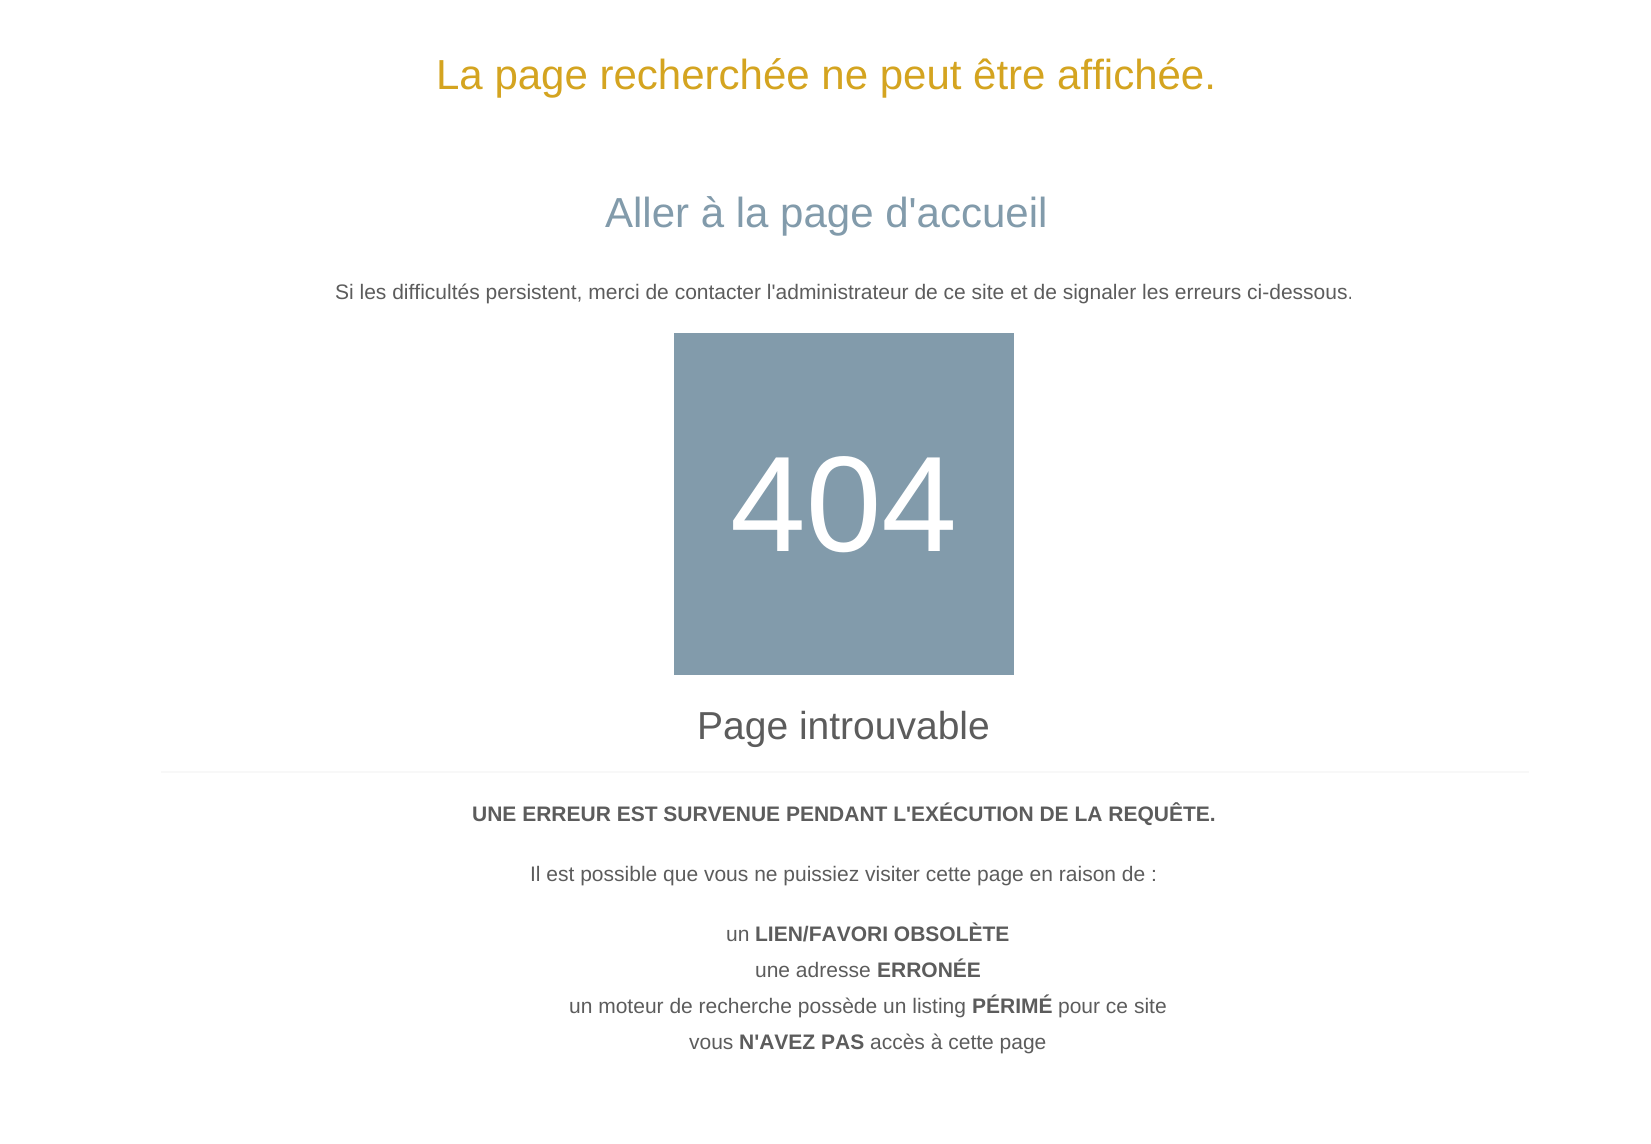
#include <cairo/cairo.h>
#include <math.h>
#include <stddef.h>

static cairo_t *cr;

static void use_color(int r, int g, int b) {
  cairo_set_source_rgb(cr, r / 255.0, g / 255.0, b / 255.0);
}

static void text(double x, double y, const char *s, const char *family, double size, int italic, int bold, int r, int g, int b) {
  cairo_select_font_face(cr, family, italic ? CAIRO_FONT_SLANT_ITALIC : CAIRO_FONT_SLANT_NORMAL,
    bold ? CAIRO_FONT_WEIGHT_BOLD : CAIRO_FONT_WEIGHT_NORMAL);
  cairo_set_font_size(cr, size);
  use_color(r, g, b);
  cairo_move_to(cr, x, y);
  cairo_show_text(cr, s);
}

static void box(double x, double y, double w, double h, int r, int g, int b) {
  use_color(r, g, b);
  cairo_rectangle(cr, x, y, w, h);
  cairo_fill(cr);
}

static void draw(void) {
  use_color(255, 255, 255);
  cairo_paint(cr);
  box(674, 333, 340, 342, 130, 155, 171);
  box(161, 771, 1368, 2, 248, 248, 248);
  text(436, 89, "La page recherchée ne peut être affichée.", "Liberation Sans", 42, 0, 0, 212, 164, 32);
  text(605, 227, "Aller à la page d'accueil", "Liberation Sans", 42, 0, 0, 130, 155, 171);
  text(335, 299, "Si les difficultés persistent, merci de contacter l'administrateur de ce site et de signaler les erreurs ci-dessous.", "Liberation Sans", 21, 0, 0, 92, 92, 92);
  text(730, 551, "404", "Liberation Sans", 136, 0, 0, 255, 255, 255);
  text(697, 739, "Page introuvable", "Liberation Sans", 39, 0, 0, 92, 92, 92);
  text(472, 821, "UNE ERREUR EST SURVENUE PENDANT L'EXÉCUTION DE LA REQUÊTE.", "Liberation Sans", 21, 0, 1, 92, 92, 92);
  text(530, 881, "Il est possible que vous ne puissiez visiter cette page en raison de :", "Liberation Sans", 21, 0, 0, 92, 92, 92);
  text(726, 941, "un", "Liberation Sans", 21, 0, 0, 92, 92, 92);
  text(755, 941, "LIEN/FAVORI OBSOLÈTE", "Liberation Sans", 21, 0, 1, 92, 92, 92);
  text(755, 977, "une adresse", "Liberation Sans", 21, 0, 0, 92, 92, 92);
  text(877, 977, "ERRONÉE", "Liberation Sans", 21, 0, 1, 92, 92, 92);
  text(569, 1013, "un moteur de recherche possède un listing", "Liberation Sans", 21, 0, 0, 92, 92, 92);
  text(972, 1013, "PÉRIMÉ", "Liberation Sans", 21, 0, 1, 92, 92, 92);
  text(1058, 1013, "pour ce site", "Liberation Sans", 21, 0, 0, 92, 92, 92);
  text(689, 1049, "vous", "Liberation Sans", 21, 0, 0, 92, 92, 92);
  text(739, 1049, "N'AVEZ PAS", "Liberation Sans", 21, 0, 1, 92, 92, 92);
  text(870, 1049, "accès à cette page", "Liberation Sans", 21, 0, 0, 92, 92, 92);
}

int main(void) {
  cairo_surface_t *surface = cairo_image_surface_create(CAIRO_FORMAT_RGB24, 1651, 1144);
  cr = cairo_create(surface);
  cairo_font_options_t *options = cairo_font_options_create();
  cairo_font_options_set_hint_metrics(options, CAIRO_HINT_METRICS_OFF);
  cairo_font_options_set_hint_style(options, CAIRO_HINT_STYLE_NONE);
  cairo_set_font_options(cr, options);
  cairo_set_miter_limit(cr, 4);
  draw();
  cairo_surface_write_to_png(surface, "out.png");
  cairo_font_options_destroy(options);
  cairo_destroy(cr);
  cairo_surface_destroy(surface);
  return 0;
}
